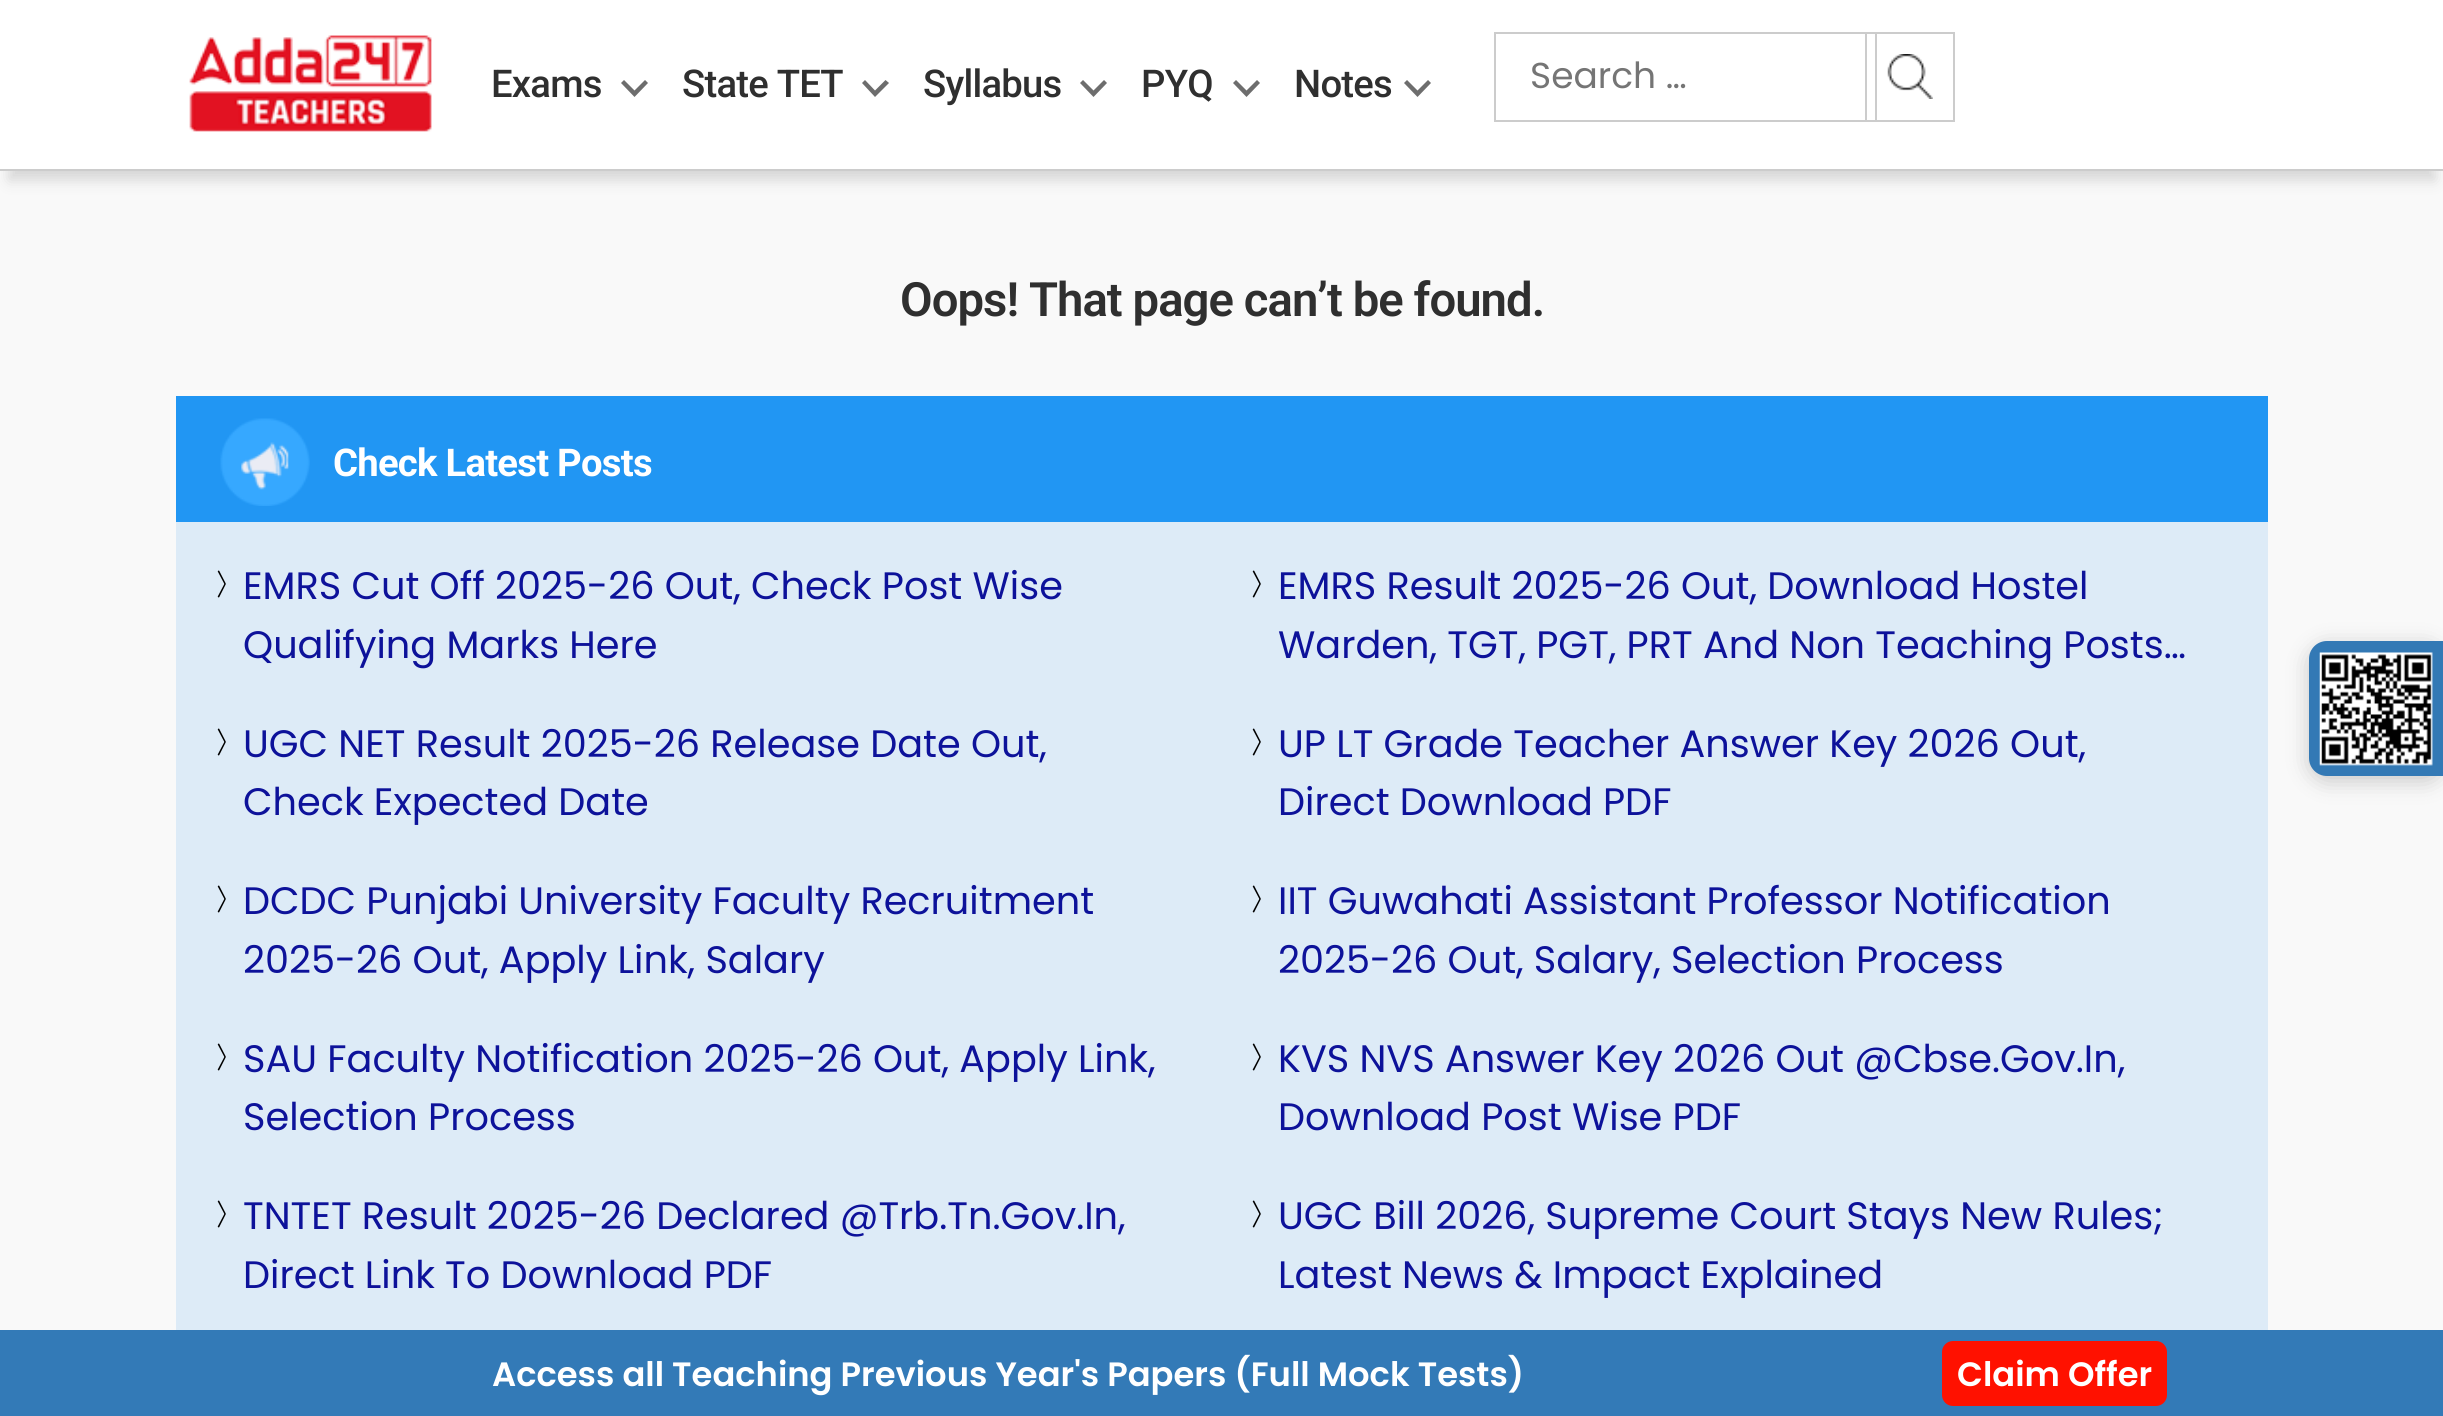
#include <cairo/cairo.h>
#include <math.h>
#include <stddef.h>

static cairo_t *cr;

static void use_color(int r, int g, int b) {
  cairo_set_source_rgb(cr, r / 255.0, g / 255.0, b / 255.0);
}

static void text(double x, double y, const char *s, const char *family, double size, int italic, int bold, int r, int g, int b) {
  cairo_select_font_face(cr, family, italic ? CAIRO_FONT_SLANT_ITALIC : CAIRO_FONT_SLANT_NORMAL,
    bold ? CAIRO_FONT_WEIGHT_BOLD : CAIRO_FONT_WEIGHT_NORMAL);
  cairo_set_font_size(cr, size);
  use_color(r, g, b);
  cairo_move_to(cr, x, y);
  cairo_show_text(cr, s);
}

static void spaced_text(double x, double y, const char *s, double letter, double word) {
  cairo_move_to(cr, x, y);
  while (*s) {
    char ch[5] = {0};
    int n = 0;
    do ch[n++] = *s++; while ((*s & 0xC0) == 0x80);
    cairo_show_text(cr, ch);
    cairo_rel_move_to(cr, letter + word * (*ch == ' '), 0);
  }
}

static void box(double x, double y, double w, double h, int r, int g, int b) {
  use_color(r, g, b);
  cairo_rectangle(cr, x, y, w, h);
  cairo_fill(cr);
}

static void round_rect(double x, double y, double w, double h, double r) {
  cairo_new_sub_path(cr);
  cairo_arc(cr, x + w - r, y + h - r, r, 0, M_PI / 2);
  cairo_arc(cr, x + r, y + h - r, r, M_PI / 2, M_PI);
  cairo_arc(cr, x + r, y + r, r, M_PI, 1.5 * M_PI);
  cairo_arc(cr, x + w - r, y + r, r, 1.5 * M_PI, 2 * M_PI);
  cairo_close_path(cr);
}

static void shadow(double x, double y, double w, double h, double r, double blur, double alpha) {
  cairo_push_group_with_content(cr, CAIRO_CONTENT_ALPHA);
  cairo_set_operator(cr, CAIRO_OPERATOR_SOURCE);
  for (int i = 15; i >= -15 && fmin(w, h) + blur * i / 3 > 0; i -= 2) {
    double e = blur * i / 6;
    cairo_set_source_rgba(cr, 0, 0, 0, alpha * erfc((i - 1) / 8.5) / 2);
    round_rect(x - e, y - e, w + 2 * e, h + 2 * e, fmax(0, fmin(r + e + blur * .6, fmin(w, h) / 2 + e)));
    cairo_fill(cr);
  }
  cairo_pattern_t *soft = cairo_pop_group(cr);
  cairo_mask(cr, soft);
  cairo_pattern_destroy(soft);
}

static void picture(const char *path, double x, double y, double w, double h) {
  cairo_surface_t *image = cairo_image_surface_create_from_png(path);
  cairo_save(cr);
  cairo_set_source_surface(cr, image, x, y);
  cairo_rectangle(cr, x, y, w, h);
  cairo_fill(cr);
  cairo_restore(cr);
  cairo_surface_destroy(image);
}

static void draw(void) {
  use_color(249, 249, 249);
  cairo_paint(cr);
  use_color(214, 214, 214);
  shadow(9, 27, 2426, 153, 0, 7, 1);
  box(0, 0, 2443, 169, 255, 255, 255);
  box(0, 169, 2443, 2, 204, 204, 204);
  picture("img_01.png", 189, 35, 243, 97);
  use_color(109, 109, 109);
  cairo_new_path(cr);
  cairo_move_to(cr, 624, 80);
  cairo_line_to(cr, 634.5, 90.5);
  cairo_line_to(cr, 645, 80);
  cairo_line_to(cr, 648, 83);
  cairo_line_to(cr, 634.5, 97);
  cairo_line_to(cr, 621, 83);
  cairo_close_path(cr);
  cairo_fill(cr);
  cairo_new_path(cr);
  cairo_move_to(cr, 865, 80);
  cairo_line_to(cr, 875, 90.5);
  cairo_line_to(cr, 885.5, 80);
  cairo_line_to(cr, 889, 83);
  cairo_line_to(cr, 875, 97);
  cairo_line_to(cr, 862, 83);
  cairo_close_path(cr);
  cairo_fill(cr);
  cairo_new_path(cr);
  cairo_move_to(cr, 1083, 80);
  cairo_line_to(cr, 1093.5, 90.5);
  cairo_line_to(cr, 1104, 80);
  cairo_line_to(cr, 1107, 83);
  cairo_line_to(cr, 1093.5, 97);
  cairo_line_to(cr, 1080, 83);
  cairo_close_path(cr);
  cairo_fill(cr);
  cairo_new_path(cr);
  cairo_move_to(cr, 1236, 80);
  cairo_line_to(cr, 1246.5, 90.5);
  cairo_line_to(cr, 1257, 80);
  cairo_line_to(cr, 1260, 83);
  cairo_line_to(cr, 1246.5, 97);
  cairo_line_to(cr, 1233, 83);
  cairo_close_path(cr);
  cairo_fill(cr);
  cairo_new_path(cr);
  cairo_move_to(cr, 1407, 80);
  cairo_line_to(cr, 1417.5, 90.5);
  cairo_line_to(cr, 1428, 80);
  cairo_line_to(cr, 1431, 83);
  cairo_line_to(cr, 1417.5, 97);
  cairo_line_to(cr, 1404, 83);
  cairo_close_path(cr);
  cairo_fill(cr);
  cairo_rectangle(cr, 1495, 33, 381, 88);
  use_color(204, 204, 204);
  cairo_stroke(cr);
  picture("img_02.png", 1887, 54, 46, 45);
  cairo_rectangle(cr, 1866, 33, 88, 88);
  cairo_stroke(cr);
  box(176, 396, 2092, 126, 33, 150, 243);
  picture("img_03.png", 220, 418, 90, 88);
  box(176, 522, 2092, 808, 221, 235, 247);
  use_color(0, 0, 0);
  shadow(2309, 646, 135, 135, 18, 11, 0.2);
  use_color(51, 121, 181);
  cairo_new_path(cr);
  cairo_move_to(cr, 2327, 641);
  cairo_line_to(cr, 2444, 641);
  cairo_line_to(cr, 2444, 776);
  cairo_line_to(cr, 2327, 776);
  cairo_curve_to(cr, 2317, 776, 2309, 768, 2309, 758);
  cairo_line_to(cr, 2309, 659);
  cairo_curve_to(cr, 2309, 649, 2317, 641, 2327, 641);
  cairo_close_path(cr);
  cairo_fill(cr);
  picture("img_04.png", 2319, 652, 114, 114);
  box(0, 1330, 2443, 86, 51, 122, 183);
  use_color(255, 17, 0);
  round_rect(1942, 1341, 225, 65, 11);
  cairo_fill(cr);
  cairo_select_font_face(cr, "Roboto Medium", CAIRO_FONT_SLANT_NORMAL, CAIRO_FONT_WEIGHT_NORMAL);
  cairo_set_font_size(cr, 38.25);
  use_color(47, 47, 47);
  spaced_text(491, 97, "Exams", -0.75, 0);
  spaced_text(682, 97, "State TET", -0.75, 0);
  spaced_text(923, 97, "Syllabus", -0.75, 0);
  spaced_text(1141, 97, "PYQ", -0.75, 0);
  spaced_text(1294, 97, "Notes", -0.75, 0);
  text(1530, 88, "Search …", "Poppins", 36, 0, 0, 117, 117, 117);
  cairo_select_font_face(cr, "Roboto SemiBold", CAIRO_FONT_SLANT_NORMAL, CAIRO_FONT_WEIGHT_NORMAL);
  cairo_set_font_size(cr, 47.25);
  use_color(47, 47, 47);
  spaced_text(900, 316, "Oops! That page can’t be found.", -0.95, 0);
  cairo_select_font_face(cr, "Roboto", CAIRO_FONT_SLANT_NORMAL, CAIRO_FONT_WEIGHT_BOLD);
  cairo_set_font_size(cr, 38.25);
  use_color(255, 255, 255);
  spaced_text(333, 476, "Check Latest Posts", -0.75, 0);
  cairo_save(cr);
  cairo_translate(cr, 236, 599);
  cairo_rotate(cr, -90 * M_PI / 180);
  text(0, 0, "﹀", "WenQuanYi Zen Hei Medium", 32, 0, 0, 0, 0, 0);
  cairo_restore(cr);
  text(243, 599, "EMRS Cut Off 2025-26 Out, Check Post Wise", "Poppins", 38.25, 0, 0, 13, 18, 154);
  text(243, 658, "Qualifying Marks Here", "Poppins", 38.25, 0, 0, 13, 18, 154);
  cairo_save(cr);
  cairo_translate(cr, 1271, 599);
  cairo_rotate(cr, -90 * M_PI / 180);
  text(0, 0, "﹀", "WenQuanYi Zen Hei Medium", 32, 0, 0, 0, 0, 0);
  cairo_restore(cr);
  text(1278, 599, "EMRS Result 2025-26 Out, Download Hostel", "Poppins", 38.25, 0, 0, 13, 18, 154);
  text(1278, 658, "Warden, TGT, PGT, PRT And Non Teaching Posts…", "Poppins", 38.25, 0, 0, 13, 18, 154);
  cairo_save(cr);
  cairo_translate(cr, 236, 757);
  cairo_rotate(cr, -90 * M_PI / 180);
  text(0, 0, "﹀", "WenQuanYi Zen Hei Medium", 32, 0, 0, 0, 0, 0);
  cairo_restore(cr);
  text(243, 757, "UGC NET Result 2025-26 Release Date Out,", "Poppins", 38.25, 0, 0, 13, 18, 154);
  text(243, 815, "Check Expected Date", "Poppins", 38.25, 0, 0, 13, 18, 154);
  cairo_save(cr);
  cairo_translate(cr, 1271, 757);
  cairo_rotate(cr, -90 * M_PI / 180);
  text(0, 0, "﹀", "WenQuanYi Zen Hei Medium", 32, 0, 0, 0, 0, 0);
  cairo_restore(cr);
  text(1278, 757, "UP LT Grade Teacher Answer Key 2026 Out,", "Poppins", 38.25, 0, 0, 13, 18, 154);
  text(1278, 815, "Direct Download PDF", "Poppins", 38.25, 0, 0, 13, 18, 154);
  cairo_save(cr);
  cairo_translate(cr, 236, 914);
  cairo_rotate(cr, -90 * M_PI / 180);
  text(0, 0, "﹀", "WenQuanYi Zen Hei Medium", 32, 0, 0, 0, 0, 0);
  cairo_restore(cr);
  text(243, 914, "DCDC Punjabi University Faculty Recruitment", "Poppins", 38.25, 0, 0, 13, 18, 154);
  text(243, 973, "2025-26 Out, Apply Link, Salary", "Poppins", 38.25, 0, 0, 13, 18, 154);
  cairo_save(cr);
  cairo_translate(cr, 1271, 914);
  cairo_rotate(cr, -90 * M_PI / 180);
  text(0, 0, "﹀", "WenQuanYi Zen Hei Medium", 32, 0, 0, 0, 0, 0);
  cairo_restore(cr);
  text(1278, 914, "IIT Guwahati Assistant Professor Notification", "Poppins", 38.25, 0, 0, 13, 18, 154);
  text(1278, 973, "2025-26 Out, Salary, Selection Process", "Poppins", 38.25, 0, 0, 13, 18, 154);
  cairo_save(cr);
  cairo_translate(cr, 236, 1072);
  cairo_rotate(cr, -90 * M_PI / 180);
  text(0, 0, "﹀", "WenQuanYi Zen Hei Medium", 32, 0, 0, 0, 0, 0);
  cairo_restore(cr);
  text(243, 1072, "SAU Faculty Notification 2025-26 Out, Apply Link,", "Poppins", 38.25, 0, 0, 13, 18, 154);
  text(243, 1130, "Selection Process", "Poppins", 38.25, 0, 0, 13, 18, 154);
  cairo_save(cr);
  cairo_translate(cr, 1271, 1072);
  cairo_rotate(cr, -90 * M_PI / 180);
  text(0, 0, "﹀", "WenQuanYi Zen Hei Medium", 32, 0, 0, 0, 0, 0);
  cairo_restore(cr);
  text(1278, 1072, "KVS NVS Answer Key 2026 Out @Cbse.Gov.In,", "Poppins", 38.25, 0, 0, 13, 18, 154);
  text(1278, 1130, "Download Post Wise PDF", "Poppins", 38.25, 0, 0, 13, 18, 154);
  cairo_save(cr);
  cairo_translate(cr, 236, 1229);
  cairo_rotate(cr, -90 * M_PI / 180);
  text(0, 0, "﹀", "WenQuanYi Zen Hei Medium", 32, 0, 0, 0, 0, 0);
  cairo_restore(cr);
  text(243, 1229, "TNTET Result 2025-26 Declared @Trb.Tn.Gov.In,", "Poppins", 38.25, 0, 0, 13, 18, 154);
  text(243, 1288, "Direct Link To Download PDF", "Poppins", 38.25, 0, 0, 13, 18, 154);
  cairo_save(cr);
  cairo_translate(cr, 1271, 1229);
  cairo_rotate(cr, -90 * M_PI / 180);
  text(0, 0, "﹀", "WenQuanYi Zen Hei Medium", 32, 0, 0, 0, 0, 0);
  cairo_restore(cr);
  text(1278, 1229, "UGC Bill 2026, Supreme Court Stays New Rules;", "Poppins", 38.25, 0, 0, 13, 18, 154);
  text(1278, 1288, "Latest News & Impact Explained", "Poppins", 38.25, 0, 0, 13, 18, 154);
  text(492, 1386, "Access all Teaching Previous Year's Papers (Full Mock Tests)", "Poppins SemiBold", 33.75, 0, 0, 255, 255, 255);
  text(1957, 1386, "Claim Offer", "Poppins SemiBold", 33.75, 0, 0, 255, 255, 255);
}

int main(void) {
  cairo_surface_t *surface = cairo_image_surface_create(CAIRO_FORMAT_RGB24, 2443, 1416);
  cr = cairo_create(surface);
  cairo_font_options_t *options = cairo_font_options_create();
  cairo_font_options_set_hint_metrics(options, CAIRO_HINT_METRICS_OFF);
  cairo_font_options_set_hint_style(options, CAIRO_HINT_STYLE_NONE);
  cairo_set_font_options(cr, options);
  cairo_set_miter_limit(cr, 4);
  draw();
  cairo_surface_write_to_png(surface, "out.png");
  cairo_font_options_destroy(options);
  cairo_destroy(cr);
  cairo_surface_destroy(surface);
  return 0;
}
